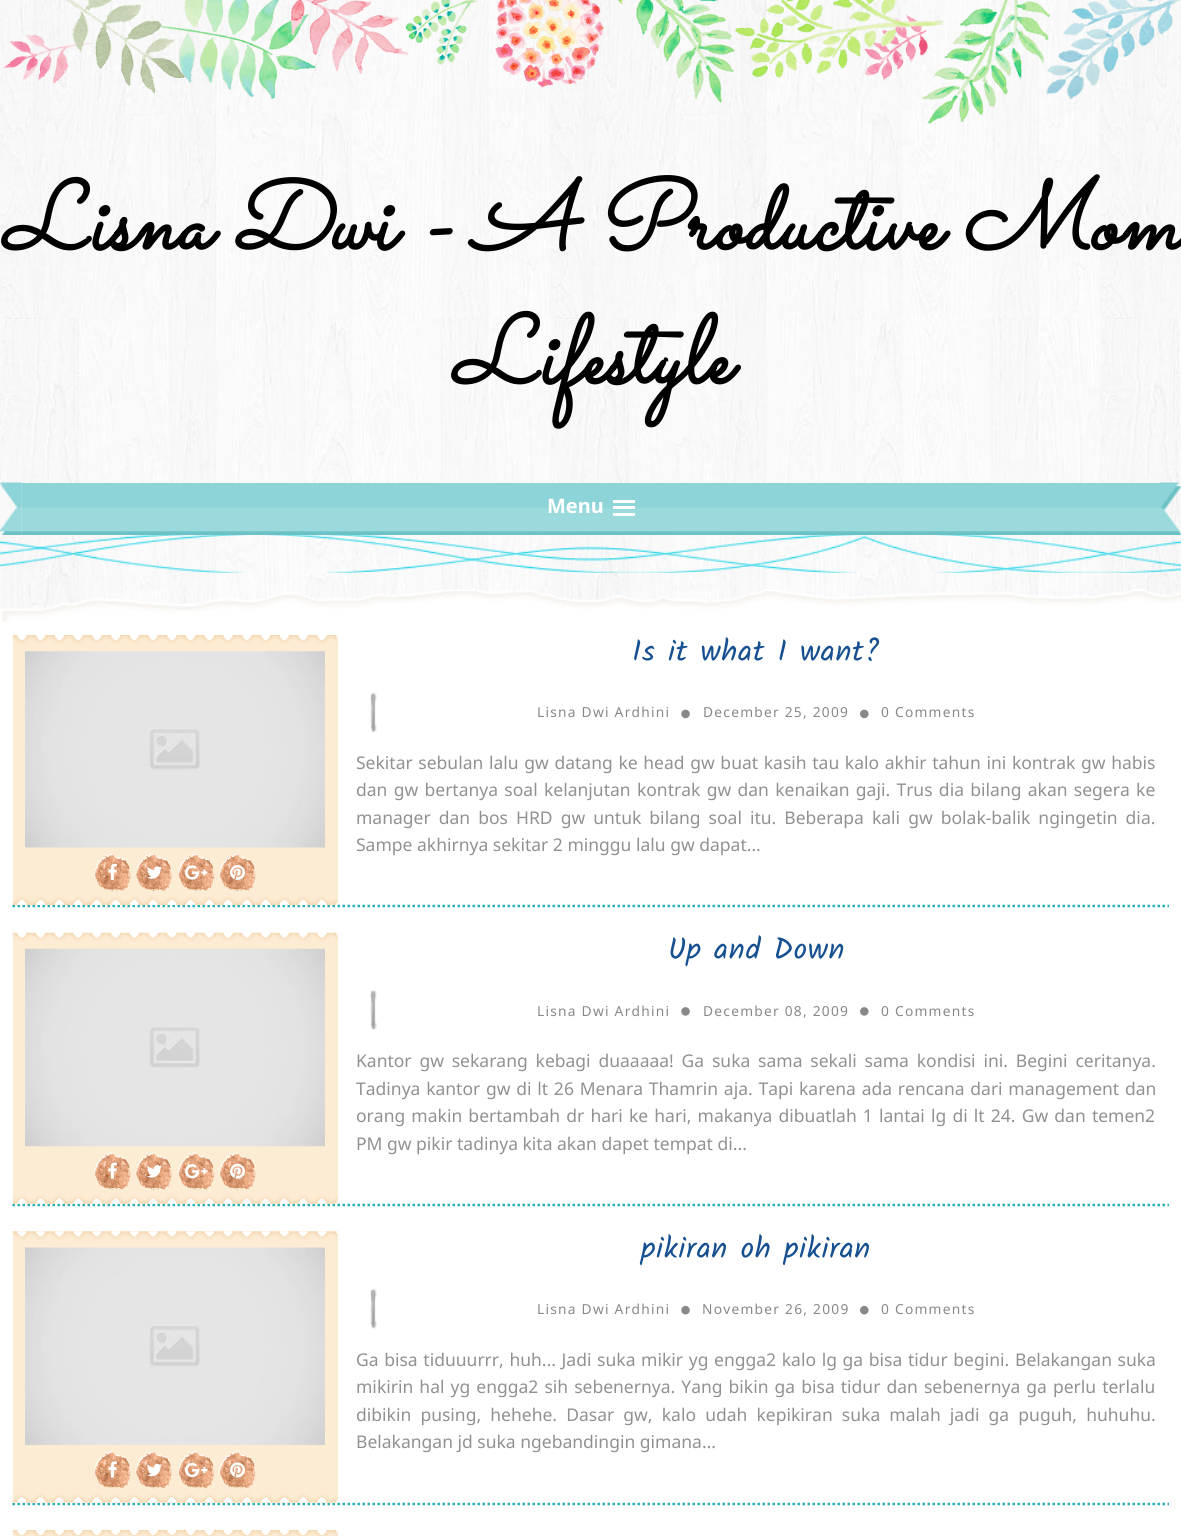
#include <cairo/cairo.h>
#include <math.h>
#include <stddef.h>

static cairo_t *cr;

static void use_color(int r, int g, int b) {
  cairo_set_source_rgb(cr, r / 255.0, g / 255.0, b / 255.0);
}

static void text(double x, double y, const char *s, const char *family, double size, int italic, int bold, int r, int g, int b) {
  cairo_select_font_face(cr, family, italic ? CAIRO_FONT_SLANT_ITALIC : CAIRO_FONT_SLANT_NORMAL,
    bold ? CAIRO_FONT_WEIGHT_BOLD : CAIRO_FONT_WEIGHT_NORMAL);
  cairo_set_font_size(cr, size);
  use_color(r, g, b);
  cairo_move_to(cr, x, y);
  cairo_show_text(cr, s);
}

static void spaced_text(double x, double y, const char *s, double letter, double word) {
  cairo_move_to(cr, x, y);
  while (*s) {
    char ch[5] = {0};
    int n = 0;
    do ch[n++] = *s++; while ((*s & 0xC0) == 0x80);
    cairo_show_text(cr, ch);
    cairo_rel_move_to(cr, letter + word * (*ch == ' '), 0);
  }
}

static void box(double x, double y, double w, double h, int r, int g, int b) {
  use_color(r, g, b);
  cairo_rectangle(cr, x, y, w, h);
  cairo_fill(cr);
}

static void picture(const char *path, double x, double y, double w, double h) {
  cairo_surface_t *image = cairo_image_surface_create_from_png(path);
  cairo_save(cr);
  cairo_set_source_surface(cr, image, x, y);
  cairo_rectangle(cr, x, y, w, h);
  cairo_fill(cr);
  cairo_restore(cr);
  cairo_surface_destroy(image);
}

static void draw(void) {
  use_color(255, 255, 255);
  cairo_paint(cr);
  picture("img_01.png", 0, 0, 1181, 609);
  picture("img_02.png", 3, 0, 1177, 124);
  picture("img_03.png", 0, 482, 1181, 53);
  box(613, 500, 22, 3, 255, 255, 255);
  box(613, 506, 22, 3, 255, 255, 255);
  box(613, 513, 22, 3, 255, 255, 255);
  picture("img_04.png", 0, 535, 1181, 38);
  picture("img_05.png", 0, 589, 1181, 33);
  cairo_new_path(cr);
  cairo_move_to(cr, 12.5, 906);
  cairo_line_to(cr, 1169, 906);
  use_color(41, 176, 182);
  cairo_set_line_width(cr, 2.5);
  cairo_set_dash(cr, (double[]){2.5, 2.5}, 2, 0);
  cairo_stroke(cr);
  box(13, 635, 325, 270, 252, 236, 211);
  picture("img_06.png", 12, 635, 326, 270);
  picture("img_07.png", 25, 651, 300, 197);
  picture("img_08.png", 94, 853, 37, 39);
  picture("img_09.png", 108, 863, 9, 17);
  picture("img_10.png", 135, 853, 37, 39);
  picture("img_11.png", 146, 866, 16, 13);
  picture("img_12.png", 178, 853, 37, 38);
  picture("img_13.png", 185, 865, 23, 15);
  picture("img_14.png", 219, 853, 37, 39);
  picture("img_15.png", 230, 865, 15, 15);
  picture("img_16.png", 370, 691, 7, 42);
  picture("img_17.png", 681, 709, 9, 10);
  picture("img_18.png", 860, 709, 9, 10);
  cairo_new_path(cr);
  cairo_move_to(cr, 12.5, 1205);
  cairo_line_to(cr, 1169, 1205);
  use_color(41, 176, 182);
  cairo_stroke(cr);
  box(13, 933, 325, 271, 252, 236, 211);
  picture("img_19.png", 12, 932, 326, 272);
  picture("img_20.png", 25, 948, 300, 199);
  picture("img_21.png", 94, 1152, 37, 38);
  picture("img_22.png", 108, 1162, 9, 17);
  picture("img_23.png", 135, 1152, 37, 38);
  picture("img_24.png", 146, 1165, 16, 13);
  picture("img_25.png", 178, 1152, 37, 38);
  picture("img_26.png", 185, 1164, 23, 15);
  picture("img_27.png", 219, 1152, 37, 38);
  picture("img_28.png", 230, 1163, 15, 16);
  picture("img_29.png", 370, 989, 7, 41);
  picture("img_30.png", 681, 1007, 9, 9);
  picture("img_31.png", 860, 1007, 9, 9);
  cairo_new_path(cr);
  cairo_move_to(cr, 12.5, 1504);
  cairo_line_to(cr, 1169, 1504);
  use_color(41, 176, 182);
  cairo_stroke(cr);
  box(13, 1231, 325, 272, 252, 236, 211);
  picture("img_32.png", 12, 1231, 326, 272);
  picture("img_33.png", 25, 1247, 300, 198);
  picture("img_34.png", 94, 1451, 37, 38);
  picture("img_35.png", 108, 1461, 9, 17);
  picture("img_36.png", 135, 1451, 37, 38);
  picture("img_37.png", 147, 1463, 15, 14);
  picture("img_38.png", 178, 1451, 37, 38);
  picture("img_39.png", 185, 1462, 23, 16);
  picture("img_40.png", 219, 1451, 37, 38);
  picture("img_41.png", 230, 1462, 15, 16);
  picture("img_42.png", 370, 1288, 7, 41);
  picture("img_43.png", 681, 1305, 9, 10);
  picture("img_44.png", 860, 1305, 9, 10);
  box(337, 1530, 1, 6, 252, 236, 211);
  picture("img_45.png", 12, 1530, 326, 6);
  text(2, 249, "Lisna Dwi - A Productive Mom", "Sacramento", 96.25, 1, 1, 0, 0, 0);
  text(452, 383, "Lifestyle", "Sacramento", 96.25, 1, 1, 0, 0, 0);
  text(547, 513, "Menu", "Noto Sans", 20, 0, 1, 255, 255, 255);
  cairo_select_font_face(cr, "Kalam", CAIRO_FONT_SLANT_NORMAL, CAIRO_FONT_WEIGHT_NORMAL);
  cairo_set_font_size(cr, 30);
  use_color(22, 80, 144);
  spaced_text(632, 661, "Is it what I want?", 0.6, 0);
  cairo_select_font_face(cr, "Noto Sans", CAIRO_FONT_SLANT_NORMAL, CAIRO_FONT_WEIGHT_NORMAL);
  cairo_set_font_size(cr, 13.75);
  use_color(136, 136, 136);
  spaced_text(537, 717, "Lisna Dwi Ardhini", 1.25, 0);
  spaced_text(703, 717, "December 25, 2009", 1.25, 0);
  spaced_text(881, 717, "0 Comments", 1.25, 0);
  cairo_set_font_size(cr, 17.5);
  use_color(145, 145, 145);
  spaced_text(356, 769, "Sekitar sebulan lalu gw datang ke head gw buat kasih tau kalo akhir tahun ini kontrak gw habis", 0, 1.1);
  spaced_text(356, 796, "dan gw bertanya soal kelanjutan kontrak gw dan kenaikan gaji. Trus dia bilang akan segera ke", 0, 1.75);
  spaced_text(356, 824, "manager dan bos HRD gw untuk bilang soal itu. Beberapa kali gw bolak-balik ngingetin dia.", 0, 3.5);
  text(356, 851, "Sampe akhirnya sekitar 2 minggu lalu gw dapat...", "Noto Sans", 17.5, 0, 0, 145, 145, 145);
  cairo_select_font_face(cr, "Kalam", CAIRO_FONT_SLANT_NORMAL, CAIRO_FONT_WEIGHT_NORMAL);
  cairo_set_font_size(cr, 30);
  use_color(22, 80, 144);
  spaced_text(668, 959, "Up and Down", 0.6, 0);
  cairo_select_font_face(cr, "Noto Sans", CAIRO_FONT_SLANT_NORMAL, CAIRO_FONT_WEIGHT_NORMAL);
  cairo_set_font_size(cr, 13.75);
  use_color(136, 136, 136);
  spaced_text(537, 1016, "Lisna Dwi Ardhini", 1.25, 0);
  spaced_text(703, 1016, "December 08, 2009", 1.25, 0);
  spaced_text(881, 1016, "0 Comments", 1.25, 0);
  cairo_set_font_size(cr, 17.5);
  use_color(145, 145, 145);
  spaced_text(356, 1067, "Kantor gw sekarang kebagi duaaaaa! Ga suka sama sekali sama kondisi ini. Begini ceritanya.", 0, 3.25);
  spaced_text(356, 1095, "Tadinya kantor gw di lt 26 Menara Thamrin aja. Tapi karena ada rencana dari management dan", 0, 1.2);
  spaced_text(356, 1122, "orang makin bertambah dr hari ke hari, makanya dibuatlah 1 lantai lg di lt 24. Gw dan temen2", 0, 1.6);
  text(356, 1150, "PM gw pikir tadinya kita akan dapet tempat di...", "Noto Sans", 17.5, 0, 0, 145, 145, 145);
  cairo_select_font_face(cr, "Kalam", CAIRO_FONT_SLANT_NORMAL, CAIRO_FONT_WEIGHT_NORMAL);
  cairo_set_font_size(cr, 30);
  use_color(22, 80, 144);
  spaced_text(641, 1258, "pikiran oh pikiran", 0.6, 0);
  cairo_select_font_face(cr, "Noto Sans", CAIRO_FONT_SLANT_NORMAL, CAIRO_FONT_WEIGHT_NORMAL);
  cairo_set_font_size(cr, 13.75);
  use_color(136, 136, 136);
  spaced_text(537, 1314, "Lisna Dwi Ardhini", 1.25, 0);
  spaced_text(702, 1314, "November 26, 2009", 1.25, 0);
  spaced_text(881, 1314, "0 Comments", 1.25, 0);
  cairo_set_font_size(cr, 17.5);
  use_color(145, 145, 145);
  spaced_text(356, 1366, "Ga bisa tiduuurrr, huh... Jadi suka mikir yg engga2 kalo lg ga bisa tidur begini.", 0, 1.1);
  spaced_text(1015, 1366, "Belakangan suka", 0, 1);
  spaced_text(356, 1393, "mikirin hal yg engga2 sih sebenernya. Yang bikin ga bisa tidur dan sebenernya ga perlu terlalu", 0, 1.5);
  spaced_text(356, 1421, "dibikin pusing, hehehe. Dasar gw, kalo udah kepikiran suka malah jadi ga puguh, huhuhu.", 0, 4.6);
  text(356, 1448, "Belakangan jd suka ngebandingin gimana...", "Noto Sans", 17.5, 0, 0, 145, 145, 145);
}

int main(void) {
  cairo_surface_t *surface = cairo_image_surface_create(CAIRO_FORMAT_RGB24, 1181, 1536);
  cr = cairo_create(surface);
  cairo_font_options_t *options = cairo_font_options_create();
  cairo_font_options_set_hint_metrics(options, CAIRO_HINT_METRICS_OFF);
  cairo_font_options_set_hint_style(options, CAIRO_HINT_STYLE_NONE);
  cairo_set_font_options(cr, options);
  cairo_set_miter_limit(cr, 4);
  draw();
  cairo_surface_write_to_png(surface, "out.png");
  cairo_font_options_destroy(options);
  cairo_destroy(cr);
  cairo_surface_destroy(surface);
  return 0;
}
